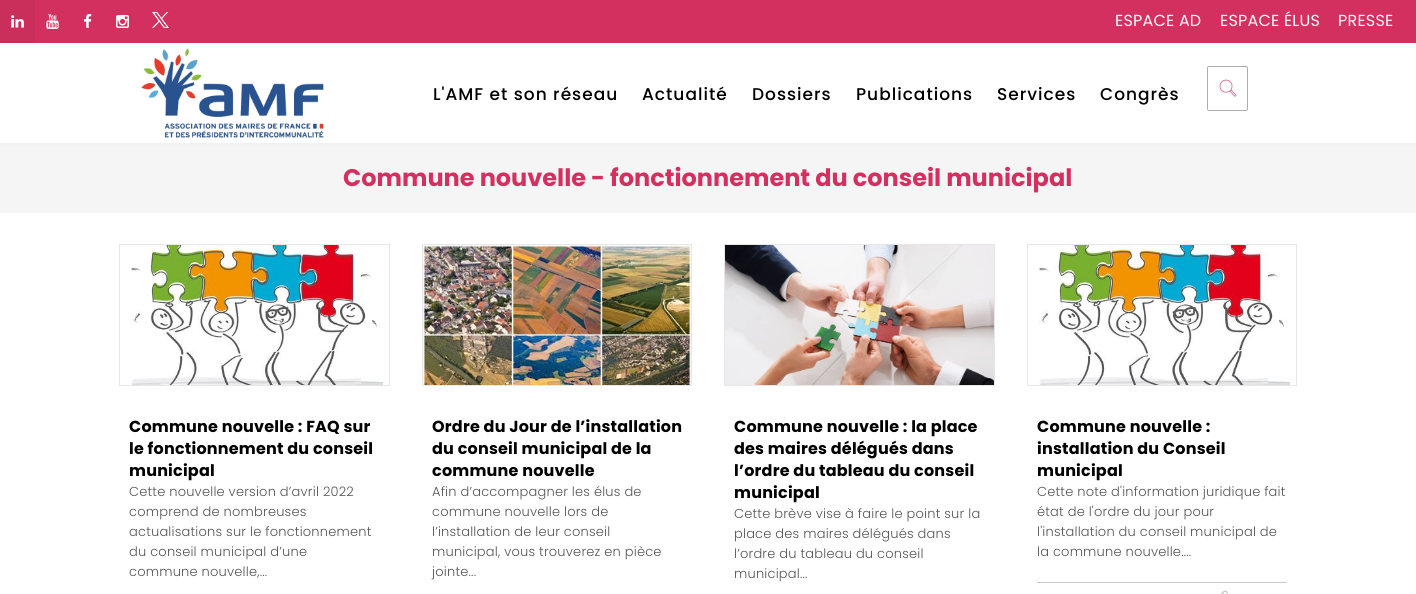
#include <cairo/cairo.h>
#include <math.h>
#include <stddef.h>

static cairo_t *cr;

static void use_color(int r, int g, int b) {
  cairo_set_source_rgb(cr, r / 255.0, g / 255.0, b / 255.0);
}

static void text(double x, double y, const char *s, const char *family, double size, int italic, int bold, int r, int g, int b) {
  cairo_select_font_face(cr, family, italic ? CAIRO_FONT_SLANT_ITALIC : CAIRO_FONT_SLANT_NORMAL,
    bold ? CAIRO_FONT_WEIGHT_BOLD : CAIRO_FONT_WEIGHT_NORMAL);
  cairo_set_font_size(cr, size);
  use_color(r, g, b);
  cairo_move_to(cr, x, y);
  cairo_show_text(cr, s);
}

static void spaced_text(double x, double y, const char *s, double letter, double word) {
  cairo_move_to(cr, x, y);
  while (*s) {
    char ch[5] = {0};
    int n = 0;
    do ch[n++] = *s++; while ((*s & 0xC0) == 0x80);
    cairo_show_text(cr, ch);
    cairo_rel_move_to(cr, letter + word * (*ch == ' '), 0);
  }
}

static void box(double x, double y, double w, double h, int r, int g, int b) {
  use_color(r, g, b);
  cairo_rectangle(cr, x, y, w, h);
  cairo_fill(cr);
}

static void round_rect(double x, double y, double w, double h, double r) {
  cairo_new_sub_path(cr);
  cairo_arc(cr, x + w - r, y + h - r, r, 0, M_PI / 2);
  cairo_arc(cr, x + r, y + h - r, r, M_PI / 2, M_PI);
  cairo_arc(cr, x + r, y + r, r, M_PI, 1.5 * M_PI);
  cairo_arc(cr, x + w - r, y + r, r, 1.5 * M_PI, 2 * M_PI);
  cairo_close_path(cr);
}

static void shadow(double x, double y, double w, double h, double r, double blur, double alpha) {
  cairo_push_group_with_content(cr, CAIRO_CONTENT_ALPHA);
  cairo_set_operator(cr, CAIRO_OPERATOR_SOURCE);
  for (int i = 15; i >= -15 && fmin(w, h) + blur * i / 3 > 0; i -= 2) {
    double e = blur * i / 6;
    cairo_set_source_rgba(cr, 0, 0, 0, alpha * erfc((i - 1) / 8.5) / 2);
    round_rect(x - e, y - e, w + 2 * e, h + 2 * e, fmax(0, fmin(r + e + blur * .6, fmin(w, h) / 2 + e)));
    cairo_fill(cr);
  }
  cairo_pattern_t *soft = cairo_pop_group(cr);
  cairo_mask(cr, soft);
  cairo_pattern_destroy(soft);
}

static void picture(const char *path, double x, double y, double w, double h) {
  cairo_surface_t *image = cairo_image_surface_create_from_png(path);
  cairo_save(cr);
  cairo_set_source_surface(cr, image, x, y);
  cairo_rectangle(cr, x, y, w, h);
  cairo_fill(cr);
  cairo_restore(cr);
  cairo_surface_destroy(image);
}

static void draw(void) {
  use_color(255, 255, 255);
  cairo_paint(cr);
  box(35, 0, 1381, 43, 211, 48, 95);
  box(0, 0, 35, 43, 202, 47, 92);
  picture("img_01.png", 11, 15, 13, 13);
  picture("img_02.png", 46, 14, 13, 15);
  picture("img_03.png", 84, 14, 8, 14);
  picture("img_04.png", 116, 15, 13, 13);
  picture("img_05.png", 152, 12, 17, 16);
  box(0, 143, 1416, 70, 245, 245, 245);
  use_color(0, 0, 0);
  shadow(0, 43, 1416, 100, 0, 2.5, 0.05);
  box(0, 43, 1416, 100, 255, 255, 255);
  picture("img_06.png", 141, 48, 183, 90);
  round_rect(1207.5, 66.5, 40, 44, 1.5);
  use_color(173, 173, 173);
  cairo_set_line_width(cr, 1);
  cairo_stroke(cr);
  picture("img_07.png", 1219, 79, 18, 18);
  cairo_rectangle(cr, 119.5, 244.5, 270, 141);
  use_color(231, 231, 231);
  cairo_stroke(cr);
  picture("img_08.png", 130, 245, 254, 140);
  cairo_rectangle(cr, 422.5, 244.5, 269, 141);
  cairo_stroke(cr);
  picture("img_09.png", 423, 245, 268, 140);
  cairo_rectangle(cr, 724.5, 244.5, 270, 141);
  cairo_stroke(cr);
  picture("img_10.png", 725, 245, 269, 140);
  cairo_rectangle(cr, 1027.5, 244.5, 269, 141);
  cairo_stroke(cr);
  picture("img_11.png", 1038, 245, 253, 140);
  box(1037, 582, 250, 1, 204, 204, 204);
  picture("img_12.png", 1221, 590, 7, 4);
  cairo_select_font_face(cr, "Poppins", CAIRO_FONT_SLANT_NORMAL, CAIRO_FONT_WEIGHT_NORMAL);
  cairo_set_font_size(cr, 16);
  use_color(255, 255, 255);
  spaced_text(1115, 26, "ESPACE AD", 0.2, 0);
  spaced_text(1220, 26, "ESPACE ÉLUS", 0.2, 0);
  spaced_text(1338, 26, "PRESSE", 0.2, 0);
  cairo_select_font_face(cr, "Poppins Medium", CAIRO_FONT_SLANT_NORMAL, CAIRO_FONT_WEIGHT_NORMAL);
  cairo_set_font_size(cr, 17);
  use_color(0, 0, 0);
  spaced_text(433, 100, "L'AMF et son réseau", 1, 0);
  spaced_text(642, 100, "Actualité", 1, 0);
  spaced_text(752, 100, "Dossiers", 1, 0);
  spaced_text(856, 100, "Publications", 1, 0);
  spaced_text(997, 100, "Services", 1, 0);
  spaced_text(1100, 100, "Congrès", 1, 0);
  text(343, 186, "Commune nouvelle - fonctionnement du conseil municipal", "Poppins", 24, 0, 1, 211, 48, 95);
  cairo_set_font_size(cr, 16);
  use_color(0, 0, 0);
  spaced_text(129, 432, "Commune nouvelle : FAQ sur", 0.2, 0);
  spaced_text(129, 454, "le fonctionnement du conseil", 0.2, 0);
  spaced_text(129, 476, "municipal", 0.2, 0);
  cairo_select_font_face(cr, "Poppins Light", CAIRO_FONT_SLANT_NORMAL, CAIRO_FONT_WEIGHT_NORMAL);
  cairo_set_font_size(cr, 13);
  use_color(85, 85, 85);
  spaced_text(129, 496, "Cette nouvelle version d’avril 2022", 0.2, 0);
  spaced_text(129, 516, "comprend de nombreuses", 0.2, 0);
  spaced_text(129, 536, "actualisations sur le fonctionnement", 0.2, 0);
  spaced_text(129, 556, "du conseil municipal d’une", 0.2, 0);
  spaced_text(129, 576, "commune nouvelle,...", 0.2, 0);
  cairo_select_font_face(cr, "Poppins", CAIRO_FONT_SLANT_NORMAL, CAIRO_FONT_WEIGHT_BOLD);
  cairo_set_font_size(cr, 16);
  use_color(0, 0, 0);
  spaced_text(432, 432, "Ordre du Jour de l’installation", 0.2, 0);
  spaced_text(432, 454, "du conseil municipal de la", 0.2, 0);
  spaced_text(432, 476, "commune nouvelle", 0.2, 0);
  cairo_select_font_face(cr, "Poppins Light", CAIRO_FONT_SLANT_NORMAL, CAIRO_FONT_WEIGHT_NORMAL);
  cairo_set_font_size(cr, 13);
  use_color(85, 85, 85);
  spaced_text(432, 496, "Afin d’accompagner les élus de", 0.2, 0);
  spaced_text(432, 516, "commune nouvelle lors de", 0.2, 0);
  spaced_text(432, 536, "l’installation de leur conseil", 0.2, 0);
  spaced_text(432, 556, "municipal, vous trouverez en pièce", 0.2, 0);
  spaced_text(432, 576, "jointe...", 0.2, 0);
  cairo_select_font_face(cr, "Poppins", CAIRO_FONT_SLANT_NORMAL, CAIRO_FONT_WEIGHT_BOLD);
  cairo_set_font_size(cr, 16);
  use_color(0, 0, 0);
  spaced_text(734, 432, "Commune nouvelle : la place", 0.2, 0);
  spaced_text(734, 454, "des maires délégués dans", 0.2, 0);
  spaced_text(734, 476, "l’ordre du tableau du conseil", 0.2, 0);
  spaced_text(734, 498, "municipal", 0.2, 0);
  cairo_select_font_face(cr, "Poppins Light", CAIRO_FONT_SLANT_NORMAL, CAIRO_FONT_WEIGHT_NORMAL);
  cairo_set_font_size(cr, 13);
  use_color(85, 85, 85);
  spaced_text(734, 518, "Cette brève vise à faire le point sur la", 0.2, 0);
  spaced_text(734, 538, "place des maires délégués dans", 0.2, 0);
  spaced_text(734, 558, "l’ordre du tableau du conseil", 0.2, 0);
  spaced_text(734, 578, "municipal...", 0.2, 0);
  cairo_select_font_face(cr, "Poppins", CAIRO_FONT_SLANT_NORMAL, CAIRO_FONT_WEIGHT_BOLD);
  cairo_set_font_size(cr, 16);
  use_color(0, 0, 0);
  spaced_text(1037, 432, "Commune nouvelle :", 0.2, 0);
  spaced_text(1037, 454, "installation du Conseil", 0.2, 0);
  spaced_text(1037, 476, "municipal", 0.2, 0);
  cairo_select_font_face(cr, "Poppins Light", CAIRO_FONT_SLANT_NORMAL, CAIRO_FONT_WEIGHT_NORMAL);
  cairo_set_font_size(cr, 13);
  use_color(85, 85, 85);
  spaced_text(1037, 496, "Cette note d'information juridique fait", 0.2, 0);
  spaced_text(1037, 516, "état de l'ordre du jour pour", 0.2, 0);
  spaced_text(1037, 536, "l'installation du conseil municipal de", 0.2, 0);
  spaced_text(1037, 556, "la commune nouvelle....", 0.2, 0);
}

int main(void) {
  cairo_surface_t *surface = cairo_image_surface_create(CAIRO_FORMAT_RGB24, 1416, 594);
  cr = cairo_create(surface);
  cairo_font_options_t *options = cairo_font_options_create();
  cairo_font_options_set_hint_metrics(options, CAIRO_HINT_METRICS_OFF);
  cairo_font_options_set_hint_style(options, CAIRO_HINT_STYLE_NONE);
  cairo_set_font_options(cr, options);
  cairo_set_miter_limit(cr, 4);
  draw();
  cairo_surface_write_to_png(surface, "out.png");
  cairo_font_options_destroy(options);
  cairo_destroy(cr);
  cairo_surface_destroy(surface);
  return 0;
}
